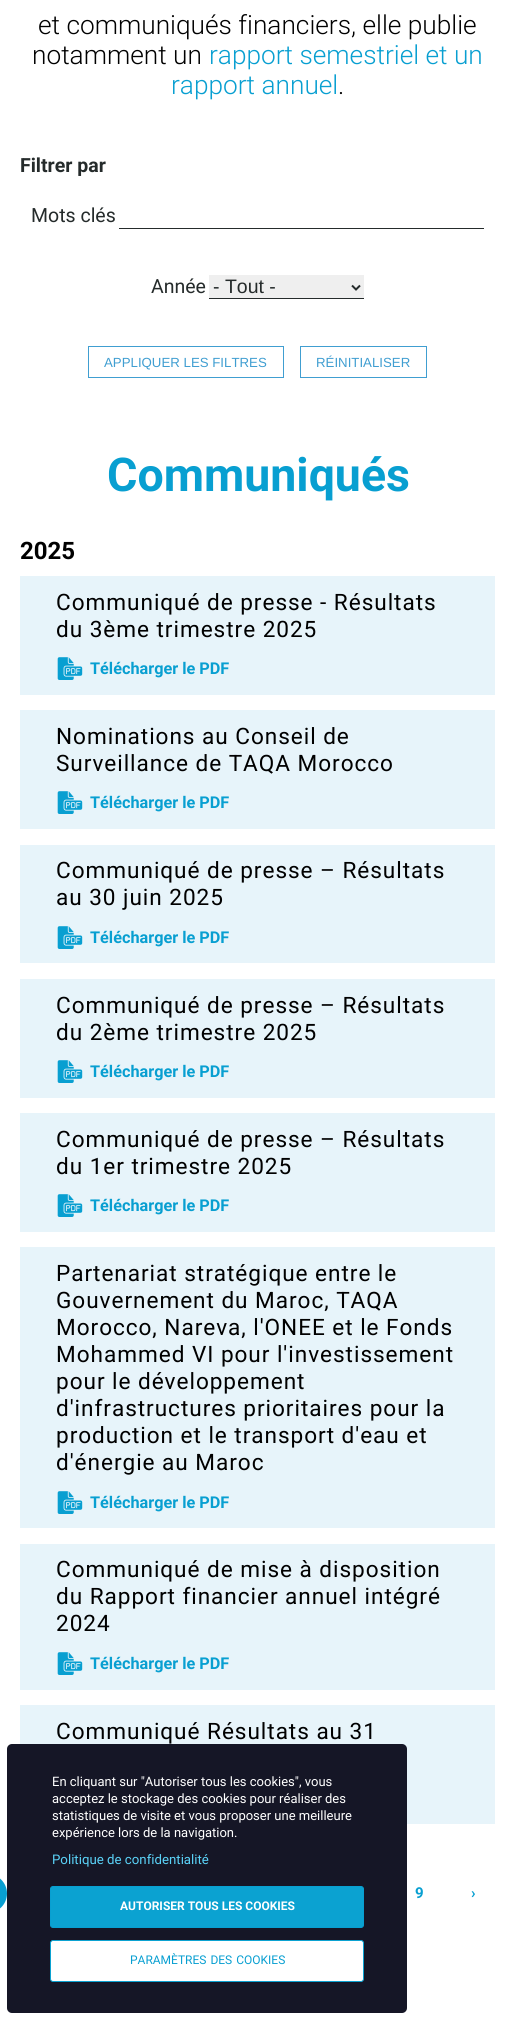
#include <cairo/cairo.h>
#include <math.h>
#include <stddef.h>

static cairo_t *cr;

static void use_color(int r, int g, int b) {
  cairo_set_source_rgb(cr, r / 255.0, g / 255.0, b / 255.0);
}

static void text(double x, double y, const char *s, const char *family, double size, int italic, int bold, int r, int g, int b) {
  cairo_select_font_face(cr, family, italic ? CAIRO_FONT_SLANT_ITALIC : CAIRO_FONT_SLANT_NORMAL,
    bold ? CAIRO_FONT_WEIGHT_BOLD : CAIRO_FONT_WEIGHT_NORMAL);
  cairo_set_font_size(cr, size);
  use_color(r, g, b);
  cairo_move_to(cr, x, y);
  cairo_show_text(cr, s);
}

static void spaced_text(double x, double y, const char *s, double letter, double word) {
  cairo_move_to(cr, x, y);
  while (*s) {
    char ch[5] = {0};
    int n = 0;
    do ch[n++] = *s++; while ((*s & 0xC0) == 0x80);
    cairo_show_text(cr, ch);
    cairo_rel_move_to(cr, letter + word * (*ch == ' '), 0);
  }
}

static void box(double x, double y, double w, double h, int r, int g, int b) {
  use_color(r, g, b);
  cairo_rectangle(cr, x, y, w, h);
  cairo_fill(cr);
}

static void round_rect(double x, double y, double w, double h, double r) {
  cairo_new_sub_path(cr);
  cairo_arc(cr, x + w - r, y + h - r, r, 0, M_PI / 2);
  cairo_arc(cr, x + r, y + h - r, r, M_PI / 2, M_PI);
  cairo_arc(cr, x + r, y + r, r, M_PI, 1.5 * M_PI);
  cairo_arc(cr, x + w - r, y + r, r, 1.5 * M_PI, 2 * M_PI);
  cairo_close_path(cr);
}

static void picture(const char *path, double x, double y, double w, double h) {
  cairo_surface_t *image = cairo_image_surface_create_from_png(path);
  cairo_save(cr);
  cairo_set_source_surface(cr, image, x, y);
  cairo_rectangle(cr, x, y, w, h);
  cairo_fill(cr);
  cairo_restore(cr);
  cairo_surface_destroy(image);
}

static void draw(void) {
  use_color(255, 255, 255);
  cairo_paint(cr);
  box(119, 228, 365, 1, 37, 43, 43);
  box(209, 275, 155, 23, 239, 239, 239);
  box(209, 298, 155, 1, 37, 43, 43);
  cairo_new_path(cr);
  cairo_move_to(cr, 352, 285.5);
  cairo_line_to(cr, 356, 289.5);
  cairo_line_to(cr, 360, 285.5);
  cairo_stroke(cr);
  cairo_rectangle(cr, 88.5, 346.5, 195, 31);
  use_color(64, 158, 209);
  cairo_set_line_width(cr, 1);
  cairo_stroke(cr);
  cairo_rectangle(cr, 300.5, 346.5, 126, 31);
  cairo_stroke(cr);
  box(20, 576, 475, 119, 231, 244, 250);
  picture("img_01.png", 57, 657, 26, 23);
  box(20, 710, 475, 119, 231, 244, 250);
  picture("img_01.png", 57, 791, 26, 23);
  box(20, 845, 475, 118, 231, 244, 250);
  picture("img_01.png", 57, 926, 26, 23);
  box(20, 979, 475, 119, 231, 244, 250);
  picture("img_01.png", 57, 1060, 26, 23);
  box(20, 1113, 475, 119, 231, 244, 250);
  picture("img_01.png", 57, 1194, 26, 23);
  box(20, 1247, 475, 281, 231, 244, 250);
  picture("img_01.png", 57, 1491, 26, 23);
  box(20, 1544, 475, 146, 231, 244, 250);
  picture("img_01.png", 57, 1652, 26, 23);
  box(20, 1705, 475, 119, 231, 244, 250);
  use_color(8, 159, 209);
  round_rect(-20, 1874, 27, 39, 19.5);
  cairo_fill(cr);
  use_color(21, 22, 38);
  round_rect(7, 1744, 400, 269, 5);
  cairo_fill(cr);
  use_color(11, 162, 209);
  round_rect(50.5, 1886.5, 313, 41, 2.5);
  cairo_fill_preserve(cr);
  use_color(8, 159, 209);
  cairo_stroke(cr);
  use_color(255, 255, 255);
  round_rect(50.5, 1940.5, 313, 41, 2.5);
  cairo_fill_preserve(cr);
  use_color(11, 162, 209);
  cairo_stroke(cr);
  text(38, 34, "et communiqués financiers, elle publie", "Roboto Light", 26.25, 0, 0, 0, 0, 0);
  text(32, 64, "notamment un", "Roboto Light", 26.25, 0, 0, 0, 0, 0);
  text(209, 64, "rapport semestriel et un", "Roboto Light", 26.25, 0, 0, 8, 159, 209);
  text(171, 94, "rapport annuel", "Roboto Light", 26.25, 0, 0, 8, 159, 209);
  text(338, 94, ".", "Roboto Light", 26.25, 0, 0, 0, 0, 0);
  text(20, 172, "Filtrer par", "Roboto", 19.5, 0, 1, 37, 43, 43);
  text(31, 222, "Mots clés", "Roboto", 19.5, 0, 0, 37, 43, 43);
  text(151, 293, "Année", "Roboto", 19.5, 0, 0, 37, 43, 43);
  text(213, 293, "- Tout -", "Liberation Sans", 19.5, 0, 0, 37, 43, 43);
  text(104, 367, "APPLIQUER LES FILTRES", "Liberation Sans", 13.25, 0, 0, 64, 158, 209);
  text(316, 367, "RÉINITIALISER", "Liberation Sans", 13.25, 0, 0, 64, 158, 209);
  text(107, 491, "Communiqués", "Roboto", 46.5, 0, 1, 8, 159, 209);
  text(20, 559, "2025", "Roboto", 24, 0, 1, 0, 0, 0);
  cairo_select_font_face(cr, "Roboto", CAIRO_FONT_SLANT_NORMAL, CAIRO_FONT_WEIGHT_NORMAL);
  cairo_set_font_size(cr, 22.6);
  spaced_text(56, 610, "Communiqué de presse - Résultats", 0.95, 0);
  spaced_text(56, 637, "du 3ème trimestre 2025", 0.95, 0);
  text(90, 674, "Télécharger le PDF", "Roboto", 16.25, 0, 1, 8, 159, 209);
  cairo_select_font_face(cr, "Roboto", CAIRO_FONT_SLANT_NORMAL, CAIRO_FONT_WEIGHT_NORMAL);
  cairo_set_font_size(cr, 22.6);
  use_color(0, 0, 0);
  spaced_text(56, 744, "Nominations au Conseil de", 0.95, 0);
  spaced_text(56, 771, "Surveillance de TAQA Morocco", 0.95, 0);
  text(90, 808, "Télécharger le PDF", "Roboto", 16.25, 0, 1, 8, 159, 209);
  cairo_select_font_face(cr, "Roboto", CAIRO_FONT_SLANT_NORMAL, CAIRO_FONT_WEIGHT_NORMAL);
  cairo_set_font_size(cr, 22.6);
  use_color(0, 0, 0);
  spaced_text(56, 878, "Communiqué de presse – Résultats", 0.95, 0);
  spaced_text(56, 905, "au 30 juin 2025", 0.95, 0);
  text(90, 943, "Télécharger le PDF", "Roboto", 16.25, 0, 1, 8, 159, 209);
  cairo_select_font_face(cr, "Roboto", CAIRO_FONT_SLANT_NORMAL, CAIRO_FONT_WEIGHT_NORMAL);
  cairo_set_font_size(cr, 22.6);
  use_color(0, 0, 0);
  spaced_text(56, 1013, "Communiqué de presse – Résultats", 0.95, 0);
  spaced_text(56, 1040, "du 2ème trimestre 2025", 0.95, 0);
  text(90, 1077, "Télécharger le PDF", "Roboto", 16.25, 0, 1, 8, 159, 209);
  cairo_select_font_face(cr, "Roboto", CAIRO_FONT_SLANT_NORMAL, CAIRO_FONT_WEIGHT_NORMAL);
  cairo_set_font_size(cr, 22.6);
  use_color(0, 0, 0);
  spaced_text(56, 1147, "Communiqué de presse – Résultats", 0.95, 0);
  spaced_text(56, 1174, "du 1er trimestre 2025", 0.95, 0);
  text(90, 1211, "Télécharger le PDF", "Roboto", 16.25, 0, 1, 8, 159, 209);
  cairo_select_font_face(cr, "Roboto", CAIRO_FONT_SLANT_NORMAL, CAIRO_FONT_WEIGHT_NORMAL);
  cairo_set_font_size(cr, 22.6);
  use_color(0, 0, 0);
  spaced_text(56, 1281, "Partenariat stratégique entre le", 0.95, 0);
  spaced_text(56, 1308, "Gouvernement du Maroc, TAQA", 0.95, 0);
  spaced_text(56, 1335, "Morocco, Nareva, l'ONEE et le Fonds", 0.95, 0);
  spaced_text(56, 1362, "Mohammed VI pour l'investissement", 0.95, 0);
  spaced_text(56, 1389, "pour le développement", 0.95, 0);
  spaced_text(56, 1416, "d'infrastructures prioritaires pour la", 0.95, 0);
  spaced_text(56, 1443, "production et le transport d'eau et", 0.95, 0);
  spaced_text(56, 1470, "d'énergie au Maroc", 0.95, 0);
  text(90, 1508, "Télécharger le PDF", "Roboto", 16.25, 0, 1, 8, 159, 209);
  cairo_select_font_face(cr, "Roboto", CAIRO_FONT_SLANT_NORMAL, CAIRO_FONT_WEIGHT_NORMAL);
  cairo_set_font_size(cr, 22.6);
  use_color(0, 0, 0);
  spaced_text(56, 1577, "Communiqué de mise à disposition", 0.95, 0);
  spaced_text(56, 1604, "du Rapport financier annuel intégré", 0.95, 0);
  spaced_text(56, 1631, "2024", 0.95, 0);
  text(90, 1669, "Télécharger le PDF", "Roboto", 16.25, 0, 1, 8, 159, 209);
  cairo_select_font_face(cr, "Roboto", CAIRO_FONT_SLANT_NORMAL, CAIRO_FONT_WEIGHT_NORMAL);
  cairo_set_font_size(cr, 22.6);
  use_color(0, 0, 0);
  spaced_text(56, 1739, "Communiqué Résultats au 31", 0.95, 0);
  text(415, 1898, "9", "Roboto", 15, 0, 1, 8, 159, 209);
  text(471, 1898, "›", "Roboto", 15, 0, 1, 8, 159, 209);
  text(52, 1786, "En cliquant sur \"Autoriser tous les cookies\", vous", "Roboto", 13, 0, 0, 255, 255, 255);
  text(52, 1803, "acceptez le stockage des cookies pour réaliser des", "Roboto", 13, 0, 0, 255, 255, 255);
  text(52, 1820, "statistiques de visite et vous proposer une meilleure", "Roboto", 13, 0, 0, 255, 255, 255);
  text(52, 1837, "expérience lors de la navigation.", "Roboto", 13, 0, 0, 255, 255, 255);
  text(52, 1864, "Politique de confidentialité", "Roboto", 13.25, 0, 0, 90, 210, 247);
  text(120, 1910, "AUTORISER TOUS LES COOKIES", "Roboto", 12, 0, 1, 255, 255, 255);
  cairo_select_font_face(cr, "Roboto", CAIRO_FONT_SLANT_NORMAL, CAIRO_FONT_WEIGHT_NORMAL);
  use_color(8, 159, 209);
  spaced_text(130, 1964, "PARAMÈTRES DES COOKIES", 0, 1);
}

int main(void) {
  cairo_surface_t *surface = cairo_image_surface_create(CAIRO_FORMAT_RGB24, 515, 2020);
  cr = cairo_create(surface);
  cairo_font_options_t *options = cairo_font_options_create();
  cairo_font_options_set_hint_metrics(options, CAIRO_HINT_METRICS_OFF);
  cairo_font_options_set_hint_style(options, CAIRO_HINT_STYLE_NONE);
  cairo_set_font_options(cr, options);
  cairo_set_miter_limit(cr, 4);
  draw();
  cairo_surface_write_to_png(surface, "out.png");
  cairo_font_options_destroy(options);
  cairo_destroy(cr);
  cairo_surface_destroy(surface);
  return 0;
}
